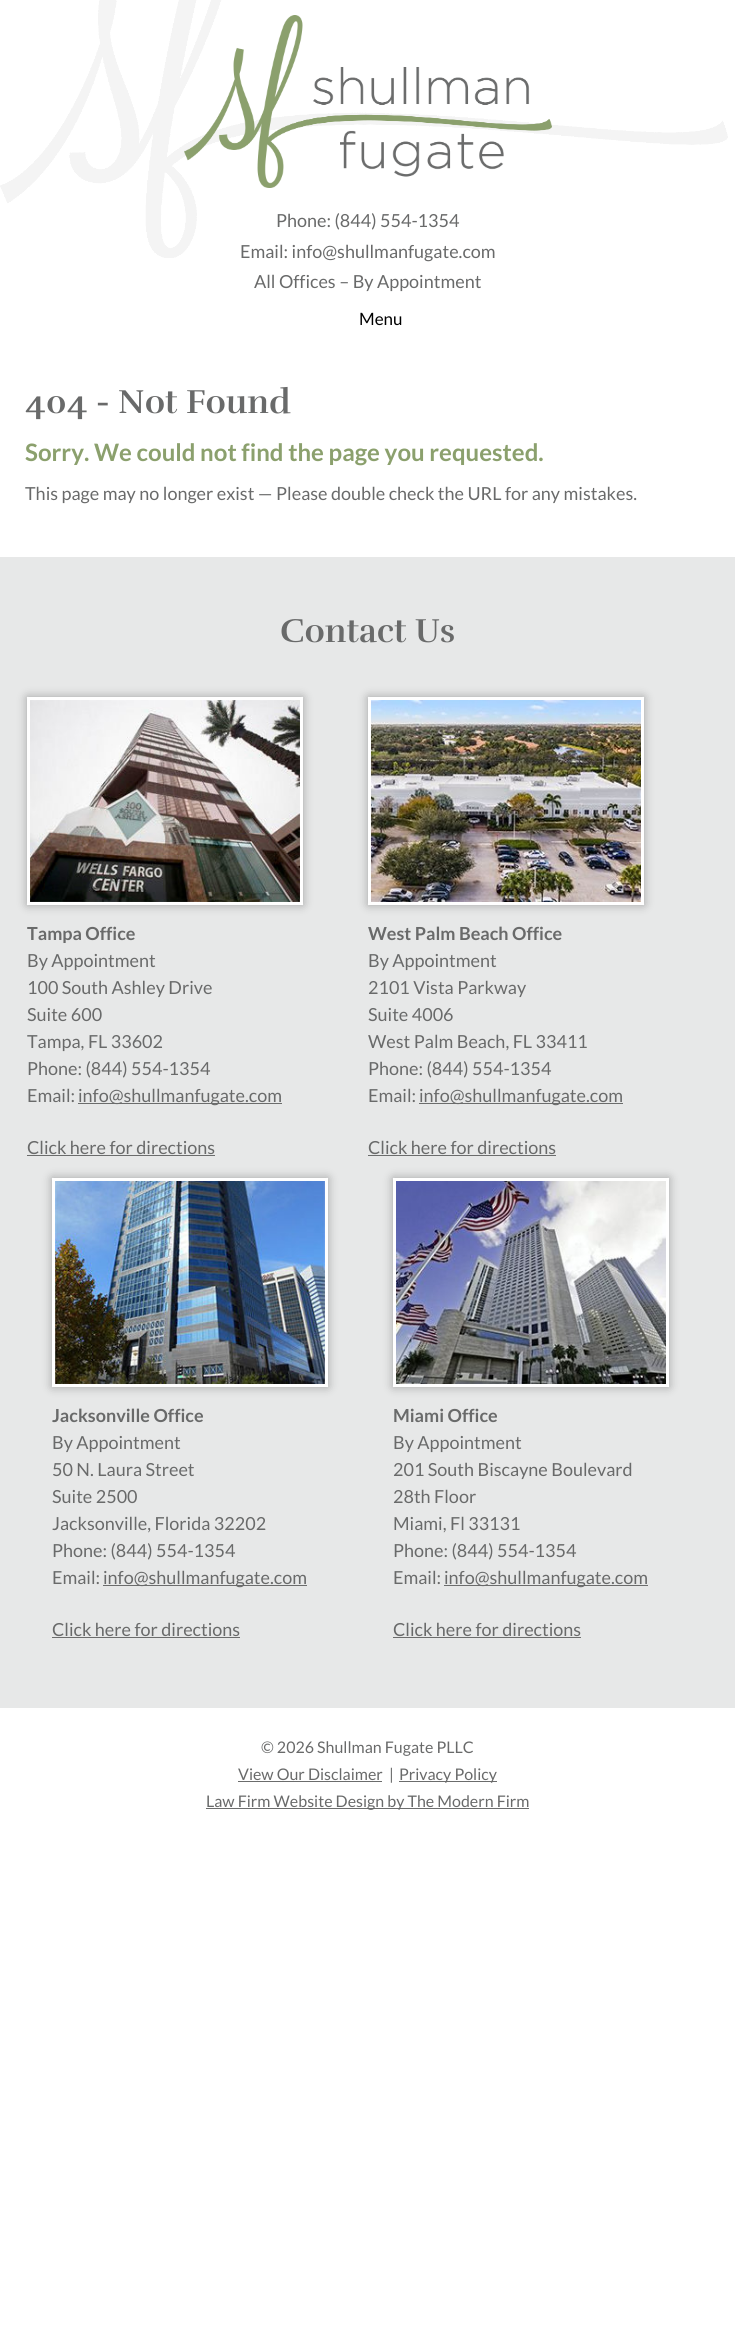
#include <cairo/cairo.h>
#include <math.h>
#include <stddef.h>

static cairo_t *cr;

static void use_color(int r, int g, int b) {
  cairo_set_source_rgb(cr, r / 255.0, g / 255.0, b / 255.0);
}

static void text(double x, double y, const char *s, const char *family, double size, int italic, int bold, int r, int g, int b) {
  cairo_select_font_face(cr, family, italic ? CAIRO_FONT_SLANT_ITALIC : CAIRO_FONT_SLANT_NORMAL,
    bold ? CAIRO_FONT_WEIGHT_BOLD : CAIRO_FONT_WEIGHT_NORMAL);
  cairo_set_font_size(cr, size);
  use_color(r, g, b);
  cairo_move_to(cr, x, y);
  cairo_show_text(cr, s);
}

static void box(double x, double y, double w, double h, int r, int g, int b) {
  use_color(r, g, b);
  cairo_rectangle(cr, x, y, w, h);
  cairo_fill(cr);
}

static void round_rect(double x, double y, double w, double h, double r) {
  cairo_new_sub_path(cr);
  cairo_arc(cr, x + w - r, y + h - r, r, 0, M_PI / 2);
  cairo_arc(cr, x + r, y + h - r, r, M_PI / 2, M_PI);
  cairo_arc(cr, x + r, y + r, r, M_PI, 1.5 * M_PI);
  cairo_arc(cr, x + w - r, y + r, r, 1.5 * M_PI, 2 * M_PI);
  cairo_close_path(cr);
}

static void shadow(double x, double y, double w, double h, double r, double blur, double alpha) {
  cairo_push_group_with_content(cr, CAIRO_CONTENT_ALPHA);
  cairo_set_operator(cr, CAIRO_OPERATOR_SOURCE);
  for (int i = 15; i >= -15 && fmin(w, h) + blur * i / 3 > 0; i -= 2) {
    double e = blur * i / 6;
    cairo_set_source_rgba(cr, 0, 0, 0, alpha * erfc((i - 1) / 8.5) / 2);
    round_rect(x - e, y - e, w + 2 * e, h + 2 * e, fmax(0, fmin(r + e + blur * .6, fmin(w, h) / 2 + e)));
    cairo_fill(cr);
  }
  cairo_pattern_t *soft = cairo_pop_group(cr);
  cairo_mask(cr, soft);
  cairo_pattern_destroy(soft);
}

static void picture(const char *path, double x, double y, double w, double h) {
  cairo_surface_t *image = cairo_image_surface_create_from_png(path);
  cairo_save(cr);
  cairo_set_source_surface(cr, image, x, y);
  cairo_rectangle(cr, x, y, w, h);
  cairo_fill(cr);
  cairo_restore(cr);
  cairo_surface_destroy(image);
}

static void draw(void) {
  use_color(255, 255, 255);
  cairo_paint(cr);
  picture("img_01.png", 0, 0, 728, 258);
  picture("img_02.png", 184, 15, 368, 173);
  box(0, 557, 735, 1151, 231, 232, 232);
  use_color(0, 0, 0);
  shadow(27, 697, 276, 208, 0, 5, 0.3);
  cairo_rectangle(cr, 28.5, 698.5, 273, 205);
  use_color(255, 255, 255);
  cairo_set_line_width(cr, 3);
  cairo_stroke(cr);
  picture("img_03.png", 30, 700, 270, 202);
  box(78, 1103, 204, 1, 107, 108, 108);
  box(27, 1155, 188, 1, 107, 108, 108);
  use_color(0, 0, 0);
  shadow(368, 697, 276, 208, 0, 5, 0.3);
  cairo_rectangle(cr, 369.5, 698.5, 273, 205);
  use_color(255, 255, 255);
  cairo_stroke(cr);
  picture("img_04.png", 371, 700, 270, 202);
  box(419, 1103, 204, 1, 107, 108, 108);
  box(368, 1155, 188, 1, 107, 108, 108);
  use_color(0, 0, 0);
  shadow(52, 1178, 276, 209, 0, 5, 0.3);
  cairo_rectangle(cr, 53.5, 1179.5, 273, 206);
  use_color(255, 255, 255);
  cairo_stroke(cr);
  picture("img_05.png", 55, 1181, 270, 203);
  box(103, 1585, 204, 1, 107, 108, 108);
  box(52, 1637, 188, 1, 107, 108, 108);
  use_color(0, 0, 0);
  shadow(393, 1178, 276, 209, 0, 5, 0.3);
  cairo_rectangle(cr, 394.5, 1179.5, 273, 206);
  use_color(255, 255, 255);
  cairo_stroke(cr);
  picture("img_06.png", 396, 1181, 270, 203);
  box(444, 1585, 204, 1, 107, 108, 108);
  box(393, 1637, 188, 1, 107, 108, 108);
  box(238, 1781, 144, 1, 107, 108, 108);
  box(399, 1781, 98, 1, 107, 108, 108);
  box(206, 1808, 323, 1, 107, 108, 108);
  text(276, 227, "Phone: (844) 554-1354", "Lato", 18, 0, 0, 105, 106, 106);
  text(240, 258, "Email: info@shullmanfugate.com", "Lato", 18, 0, 0, 105, 106, 106);
  text(254, 288, "All Offices – By Appointment", "Lato", 18, 0, 0, 105, 106, 106);
  text(359, 325, "Menu", "Lato", 17, 0, 0, 0, 0, 0);
  text(25, 413, "404 - Not Found", "Rufina", 34, 0, 1, 105, 106, 106);
  text(25, 461, "Sorry. We could not find the page you requested.", "Lato", 24, 0, 1, 139, 160, 109);
  text(25, 500, "This page may no longer exist — Please double check the URL for any mistakes.", "Lato", 18, 0, 0, 105, 106, 106);
  text(280, 642, "Contact Us", "Rufina", 34, 0, 1, 105, 106, 106);
  text(27, 940, "Tampa Office", "Lato", 18, 0, 1, 105, 106, 106);
  text(27, 967, "By Appointment", "Lato", 18, 0, 0, 105, 106, 106);
  text(27, 994, "100 South Ashley Drive", "Lato", 18, 0, 0, 105, 106, 106);
  text(27, 1021, "Suite 600", "Lato", 18, 0, 0, 105, 106, 106);
  text(27, 1048, "Tampa, FL 33602", "Lato", 18, 0, 0, 105, 106, 106);
  text(27, 1075, "Phone: (844) 554-1354", "Lato", 18, 0, 0, 105, 106, 106);
  text(27, 1102, "Email:", "Lato", 18, 0, 0, 105, 106, 106);
  text(78, 1102, "info@shullmanfugate.com", "Lato", 18, 0, 0, 105, 106, 106);
  text(27, 1154, "Click here for directions", "Lato", 18, 0, 0, 105, 106, 106);
  text(368, 940, "West Palm Beach Office", "Lato", 18, 0, 1, 105, 106, 106);
  text(368, 967, "By Appointment", "Lato", 18, 0, 0, 105, 106, 106);
  text(368, 994, "2101 Vista Parkway", "Lato", 18, 0, 0, 105, 106, 106);
  text(368, 1021, "Suite 4006", "Lato", 18, 0, 0, 105, 106, 106);
  text(368, 1048, "West Palm Beach, FL 33411", "Lato", 18, 0, 0, 105, 106, 106);
  text(368, 1075, "Phone: (844) 554-1354", "Lato", 18, 0, 0, 105, 106, 106);
  text(368, 1102, "Email:", "Lato", 18, 0, 0, 105, 106, 106);
  text(419, 1102, "info@shullmanfugate.com", "Lato", 18, 0, 0, 105, 106, 106);
  text(368, 1154, "Click here for directions", "Lato", 18, 0, 0, 105, 106, 106);
  text(52, 1422, "Jacksonville Office", "Lato", 18, 0, 1, 105, 106, 106);
  text(52, 1449, "By Appointment", "Lato", 18, 0, 0, 105, 106, 106);
  text(52, 1476, "50 N. Laura Street", "Lato", 18, 0, 0, 105, 106, 106);
  text(52, 1503, "Suite 2500", "Lato", 18, 0, 0, 105, 106, 106);
  text(52, 1530, "Jacksonville, Florida 32202", "Lato", 18, 0, 0, 105, 106, 106);
  text(52, 1557, "Phone: (844) 554-1354", "Lato", 18, 0, 0, 105, 106, 106);
  text(52, 1584, "Email:", "Lato", 18, 0, 0, 105, 106, 106);
  text(103, 1584, "info@shullmanfugate.com", "Lato", 18, 0, 0, 105, 106, 106);
  text(52, 1636, "Click here for directions", "Lato", 18, 0, 0, 105, 106, 106);
  text(393, 1422, "Miami Office", "Lato", 18, 0, 1, 105, 106, 106);
  text(393, 1449, "By Appointment", "Lato", 18, 0, 0, 105, 106, 106);
  text(393, 1476, "201 South Biscayne Boulevard", "Lato", 18, 0, 0, 105, 106, 106);
  text(393, 1503, "28th Floor", "Lato", 18, 0, 0, 105, 106, 106);
  text(393, 1530, "Miami, Fl 33131", "Lato", 18, 0, 0, 105, 106, 106);
  text(393, 1557, "Phone: (844) 554-1354", "Lato", 18, 0, 0, 105, 106, 106);
  text(393, 1584, "Email:", "Lato", 18, 0, 0, 105, 106, 106);
  text(444, 1584, "info@shullmanfugate.com", "Lato", 18, 0, 0, 105, 106, 106);
  text(393, 1636, "Click here for directions", "Lato", 18, 0, 0, 105, 106, 106);
  text(261, 1753, "© 2026 Shullman Fugate PLLC", "Lato", 16, 0, 0, 105, 106, 106);
  text(238, 1780, "View Our Disclaimer", "Lato", 16, 0, 0, 105, 106, 106);
  text(389, 1780, "|", "Lato", 16, 0, 0, 105, 106, 106);
  text(399, 1780, "Privacy Policy", "Lato", 16, 0, 0, 105, 106, 106);
  text(206, 1807, "Law Firm Website Design by The Modern Firm", "Lato", 16, 0, 0, 105, 106, 106);
}

int main(void) {
  cairo_surface_t *surface = cairo_image_surface_create(CAIRO_FORMAT_RGB24, 735, 2342);
  cr = cairo_create(surface);
  cairo_font_options_t *options = cairo_font_options_create();
  cairo_font_options_set_hint_metrics(options, CAIRO_HINT_METRICS_OFF);
  cairo_font_options_set_hint_style(options, CAIRO_HINT_STYLE_NONE);
  cairo_set_font_options(cr, options);
  cairo_set_miter_limit(cr, 4);
  draw();
  cairo_surface_write_to_png(surface, "out.png");
  cairo_font_options_destroy(options);
  cairo_destroy(cr);
  cairo_surface_destroy(surface);
  return 0;
}
